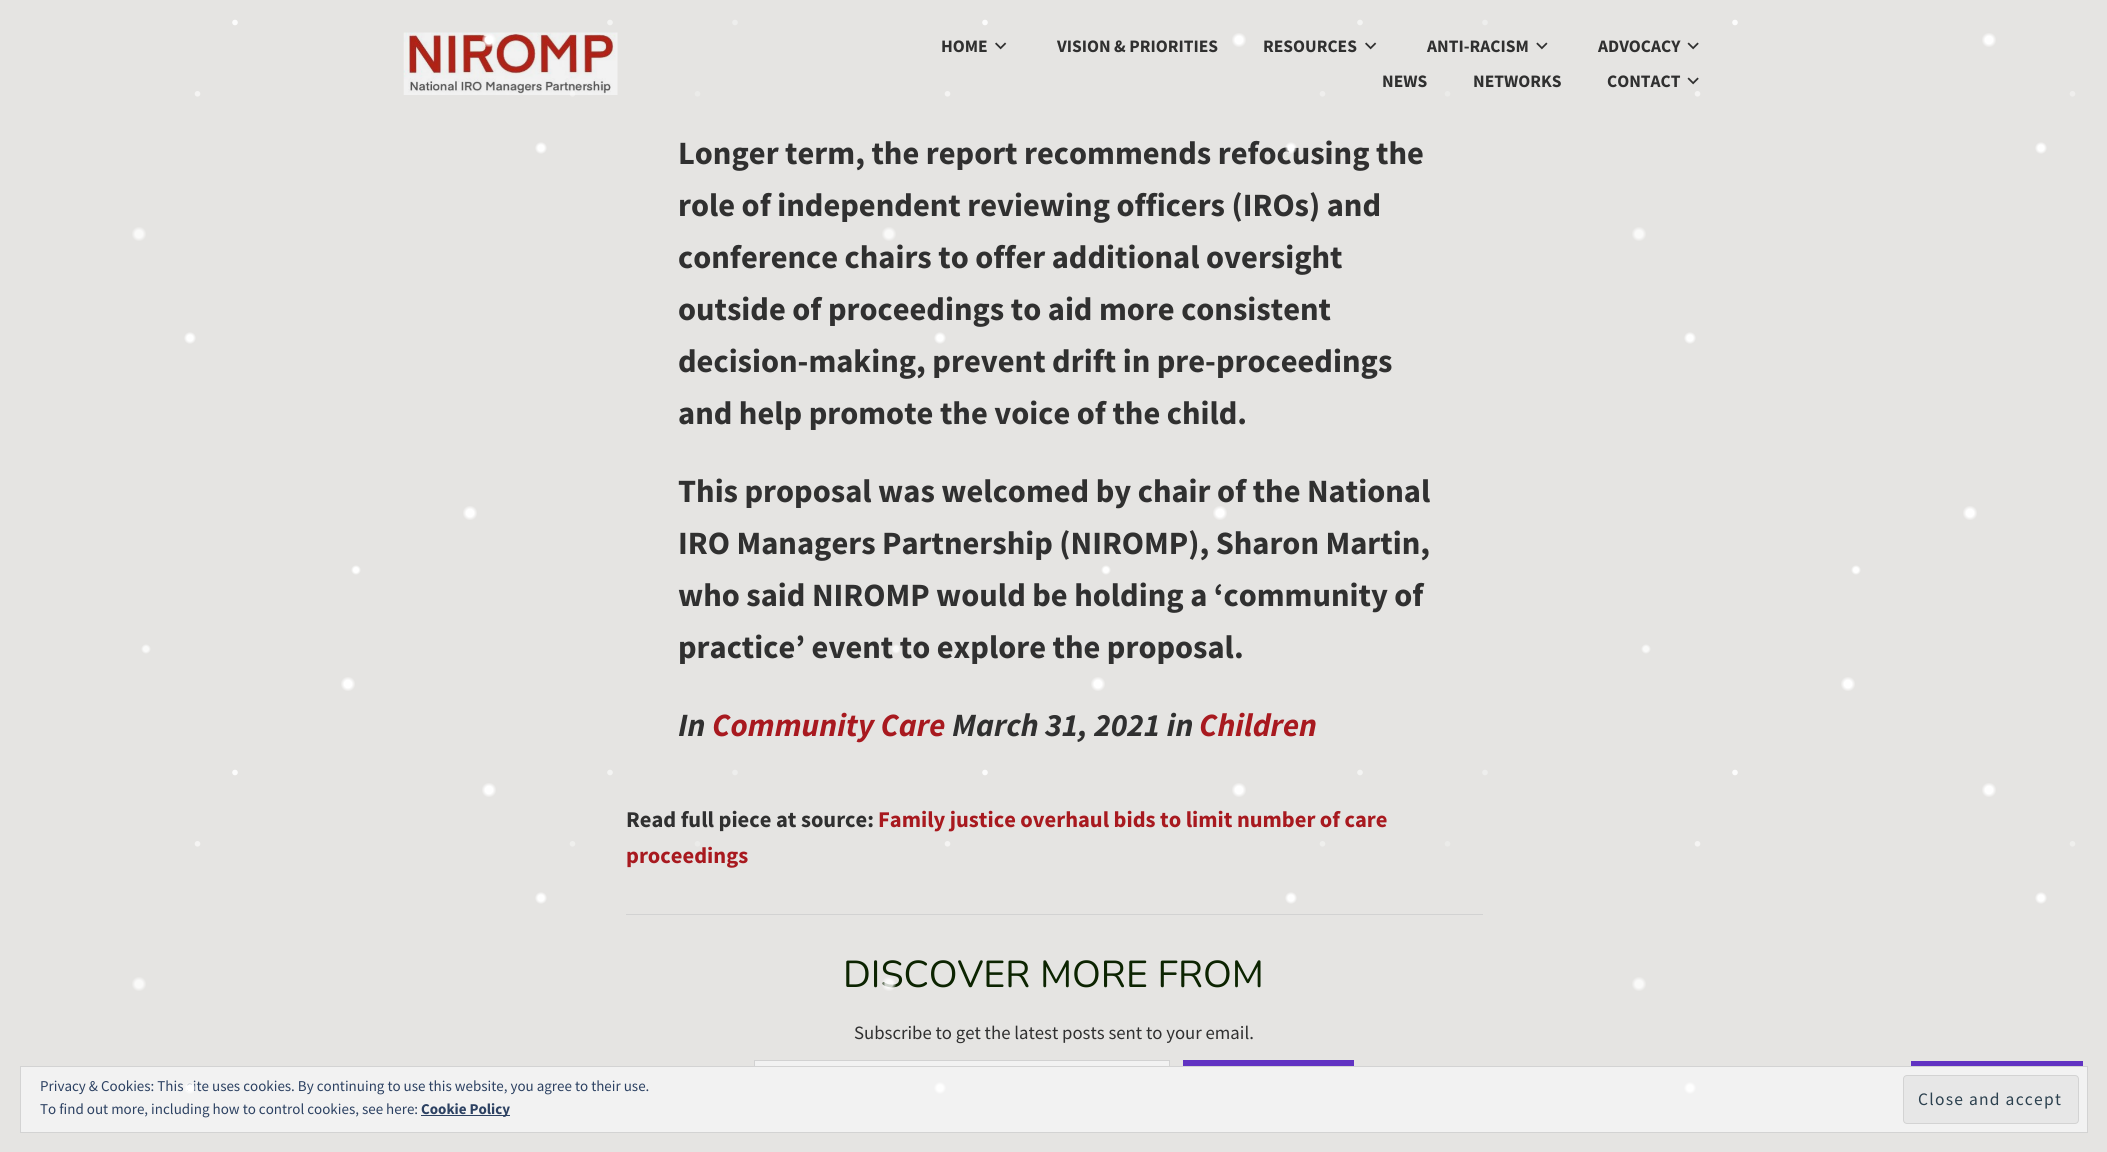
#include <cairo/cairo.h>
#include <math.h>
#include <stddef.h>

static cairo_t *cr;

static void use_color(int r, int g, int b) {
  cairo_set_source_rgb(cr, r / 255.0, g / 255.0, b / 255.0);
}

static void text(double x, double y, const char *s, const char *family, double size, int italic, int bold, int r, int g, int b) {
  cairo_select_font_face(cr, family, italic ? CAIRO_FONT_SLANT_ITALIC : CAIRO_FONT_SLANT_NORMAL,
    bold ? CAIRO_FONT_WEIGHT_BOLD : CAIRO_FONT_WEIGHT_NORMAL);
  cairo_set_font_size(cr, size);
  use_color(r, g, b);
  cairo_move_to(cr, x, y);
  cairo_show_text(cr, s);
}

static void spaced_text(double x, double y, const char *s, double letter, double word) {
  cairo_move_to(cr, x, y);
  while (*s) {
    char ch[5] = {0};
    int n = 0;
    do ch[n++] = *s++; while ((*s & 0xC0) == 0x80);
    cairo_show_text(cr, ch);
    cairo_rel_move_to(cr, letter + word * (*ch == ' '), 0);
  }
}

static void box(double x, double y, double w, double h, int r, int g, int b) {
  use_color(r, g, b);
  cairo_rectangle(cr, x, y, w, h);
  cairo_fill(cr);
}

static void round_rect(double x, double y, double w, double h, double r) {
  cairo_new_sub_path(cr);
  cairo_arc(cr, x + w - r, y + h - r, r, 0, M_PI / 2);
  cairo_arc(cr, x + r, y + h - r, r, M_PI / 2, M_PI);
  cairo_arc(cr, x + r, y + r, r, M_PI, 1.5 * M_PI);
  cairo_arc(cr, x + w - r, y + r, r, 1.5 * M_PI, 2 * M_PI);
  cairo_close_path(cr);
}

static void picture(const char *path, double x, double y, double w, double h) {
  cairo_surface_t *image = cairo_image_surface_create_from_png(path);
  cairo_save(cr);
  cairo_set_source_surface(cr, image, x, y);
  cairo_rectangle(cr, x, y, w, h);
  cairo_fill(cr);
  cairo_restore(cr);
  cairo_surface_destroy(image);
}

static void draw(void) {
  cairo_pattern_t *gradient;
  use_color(229, 228, 226);
  cairo_paint(cr);
  gradient = cairo_pattern_create_radial(470, 513, 0, 470, 513, 7.5);
  cairo_pattern_add_color_stop_rgba(gradient, 0.5, 1, 1, 1, 1);
  cairo_pattern_add_color_stop_rgba(gradient, 1, 1, 1, 1, 0);
  cairo_set_source(cr, gradient);
  cairo_pattern_destroy(gradient);
  cairo_rectangle(cr, 463, 506, 14, 14);
  cairo_fill(cr);
  gradient = cairo_pattern_create_radial(1970, 513, 0, 1970, 513, 7.5);
  cairo_pattern_add_color_stop_rgba(gradient, 0.5, 1, 1, 1, 1);
  cairo_pattern_add_color_stop_rgba(gradient, 1, 1, 1, 1, 0);
  cairo_set_source(cr, gradient);
  cairo_pattern_destroy(gradient);
  cairo_rectangle(cr, 1963, 506, 14, 14);
  cairo_fill(cr);
  gradient = cairo_pattern_create_radial(146, 649, 0, 146, 649, 5);
  cairo_pattern_add_color_stop_rgba(gradient, 0.5, 1, 1, 1, 0.8);
  cairo_pattern_add_color_stop_rgba(gradient, 1, 1, 1, 1, 0);
  cairo_set_source(cr, gradient);
  cairo_pattern_destroy(gradient);
  cairo_rectangle(cr, 141, 644, 10, 10);
  cairo_fill(cr);
  gradient = cairo_pattern_create_radial(1646, 649, 0, 1646, 649, 5);
  cairo_pattern_add_color_stop_rgba(gradient, 0.5, 1, 1, 1, 0.8);
  cairo_pattern_add_color_stop_rgba(gradient, 1, 1, 1, 1, 0);
  cairo_set_source(cr, gradient);
  cairo_pattern_destroy(gradient);
  cairo_rectangle(cr, 1641, 644, 10, 10);
  cairo_fill(cr);
  gradient = cairo_pattern_create_radial(190, 338, 0, 190, 338, 6.2);
  cairo_pattern_add_color_stop_rgba(gradient, 0.5, 1, 1, 1, 1);
  cairo_pattern_add_color_stop_rgba(gradient, 1, 1, 1, 1, 0);
  cairo_set_source(cr, gradient);
  cairo_pattern_destroy(gradient);
  cairo_rectangle(cr, 184, 332, 12, 12);
  cairo_fill(cr);
  gradient = cairo_pattern_create_radial(940, 338, 0, 940, 338, 6.2);
  cairo_pattern_add_color_stop_rgba(gradient, 0.5, 1, 1, 1, 1);
  cairo_pattern_add_color_stop_rgba(gradient, 1, 1, 1, 1, 0);
  cairo_set_source(cr, gradient);
  cairo_pattern_destroy(gradient);
  cairo_rectangle(cr, 934, 332, 12, 12);
  cairo_fill(cr);
  gradient = cairo_pattern_create_radial(1690, 338, 0, 1690, 338, 6.2);
  cairo_pattern_add_color_stop_rgba(gradient, 0.5, 1, 1, 1, 1);
  cairo_pattern_add_color_stop_rgba(gradient, 1, 1, 1, 1, 0);
  cairo_set_source(cr, gradient);
  cairo_pattern_destroy(gradient);
  cairo_rectangle(cr, 1684, 332, 12, 12);
  cairo_fill(cr);
  box(755, 1061, 414, 5, 242, 242, 242);
  cairo_rectangle(cr, 754.5, 1060.5, 415, 65);
  use_color(210, 210, 210);
  cairo_set_line_width(cr, 1);
  cairo_stroke(cr);
  use_color(242, 242, 242);
  cairo_rectangle(cr, 20.5, 1066.5, 2067, 66);
  cairo_fill_preserve(cr);
  use_color(211, 211, 211);
  cairo_stroke(cr);
  gradient = cairo_pattern_create_radial(940, 1088, 0, 940, 1088, 6.2);
  cairo_pattern_add_color_stop_rgba(gradient, 0.5, 1, 1, 1, 1);
  cairo_pattern_add_color_stop_rgba(gradient, 1, 1, 1, 1, 0);
  cairo_set_source(cr, gradient);
  cairo_pattern_destroy(gradient);
  cairo_rectangle(cr, 934, 1082, 12, 12);
  cairo_fill(cr);
  gradient = cairo_pattern_create_radial(1690, 1088, 0, 1690, 1088, 6.2);
  cairo_pattern_add_color_stop_rgba(gradient, 0.5, 1, 1, 1, 1);
  cairo_pattern_add_color_stop_rgba(gradient, 1, 1, 1, 1, 0);
  cairo_set_source(cr, gradient);
  cairo_pattern_destroy(gradient);
  cairo_rectangle(cr, 1684, 1082, 12, 12);
  cairo_fill(cr);
  gradient = cairo_pattern_create_radial(348, 684, 0, 348, 684, 7.5);
  cairo_pattern_add_color_stop_rgba(gradient, 0.5, 1, 1, 1, 1);
  cairo_pattern_add_color_stop_rgba(gradient, 1, 1, 1, 1, 0);
  cairo_set_source(cr, gradient);
  cairo_pattern_destroy(gradient);
  cairo_rectangle(cr, 341, 677, 14, 14);
  cairo_fill(cr);
  gradient = cairo_pattern_create_radial(1098, 684, 0, 1098, 684, 7.5);
  cairo_pattern_add_color_stop_rgba(gradient, 0.5, 1, 1, 1, 1);
  cairo_pattern_add_color_stop_rgba(gradient, 1, 1, 1, 1, 0);
  cairo_set_source(cr, gradient);
  cairo_pattern_destroy(gradient);
  cairo_rectangle(cr, 1091, 677, 14, 14);
  cairo_fill(cr);
  gradient = cairo_pattern_create_radial(1848, 684, 0, 1848, 684, 7.5);
  cairo_pattern_add_color_stop_rgba(gradient, 0.5, 1, 1, 1, 1);
  cairo_pattern_add_color_stop_rgba(gradient, 1, 1, 1, 1, 0);
  cairo_set_source(cr, gradient);
  cairo_pattern_destroy(gradient);
  cairo_rectangle(cr, 1841, 677, 14, 14);
  cairo_fill(cr);
  gradient = cairo_pattern_create_radial(356, 570, 0, 356, 570, 5);
  cairo_pattern_add_color_stop_rgba(gradient, 0.5, 1, 1, 1, 1);
  cairo_pattern_add_color_stop_rgba(gradient, 1, 1, 1, 1, 0);
  cairo_set_source(cr, gradient);
  cairo_pattern_destroy(gradient);
  cairo_rectangle(cr, 351, 565, 10, 10);
  cairo_fill(cr);
  gradient = cairo_pattern_create_radial(1106, 570, 0, 1106, 570, 5);
  cairo_pattern_add_color_stop_rgba(gradient, 0.5, 1, 1, 1, 1);
  cairo_pattern_add_color_stop_rgba(gradient, 1, 1, 1, 1, 0);
  cairo_set_source(cr, gradient);
  cairo_pattern_destroy(gradient);
  cairo_rectangle(cr, 1101, 565, 10, 10);
  cairo_fill(cr);
  gradient = cairo_pattern_create_radial(1856, 570, 0, 1856, 570, 5);
  cairo_pattern_add_color_stop_rgba(gradient, 0.5, 1, 1, 1, 1);
  cairo_pattern_add_color_stop_rgba(gradient, 1, 1, 1, 1, 0);
  cairo_set_source(cr, gradient);
  cairo_pattern_destroy(gradient);
  cairo_rectangle(cr, 1851, 565, 10, 10);
  cairo_fill(cr);
  picture("img_01.png", 403, 32, 215, 63);
  cairo_new_path(cr);
  cairo_move_to(cr, 197.5, 93.8);
  cairo_line_to(cr, 1697.8, 93.8);
  use_color(245, 244, 243);
  cairo_set_line_width(cr, 5.6);
  cairo_set_line_cap(cr, CAIRO_LINE_CAP_ROUND);
  cairo_set_dash(cr, (double[]){0, 750}, 2, 0);
  cairo_stroke(cr);
  gradient = cairo_pattern_create_radial(541, 148, 0, 541, 148, 6.2);
  cairo_pattern_add_color_stop_rgba(gradient, 0.5, 1, 1, 1, 1);
  cairo_pattern_add_color_stop_rgba(gradient, 1, 1, 1, 1, 0);
  cairo_set_source(cr, gradient);
  cairo_pattern_destroy(gradient);
  cairo_rectangle(cr, 535, 142, 12, 12);
  cairo_fill(cr);
  gradient = cairo_pattern_create_radial(2041, 148, 0, 2041, 148, 6.2);
  cairo_pattern_add_color_stop_rgba(gradient, 0.5, 1, 1, 1, 1);
  cairo_pattern_add_color_stop_rgba(gradient, 1, 1, 1, 1, 0);
  cairo_set_source(cr, gradient);
  cairo_pattern_destroy(gradient);
  cairo_rectangle(cr, 2035, 142, 12, 12);
  cairo_fill(cr);
  gradient = cairo_pattern_create_radial(541, 898, 0, 541, 898, 6.2);
  cairo_pattern_add_color_stop_rgba(gradient, 0.5, 1, 1, 1, 1);
  cairo_pattern_add_color_stop_rgba(gradient, 1, 1, 1, 1, 0);
  cairo_set_source(cr, gradient);
  cairo_pattern_destroy(gradient);
  cairo_rectangle(cr, 535, 892, 12, 12);
  cairo_fill(cr);
  gradient = cairo_pattern_create_radial(1291, 898, 0, 1291, 898, 6.2);
  cairo_pattern_add_color_stop_rgba(gradient, 0.5, 1, 1, 1, 1);
  cairo_pattern_add_color_stop_rgba(gradient, 1, 1, 1, 1, 0);
  cairo_set_source(cr, gradient);
  cairo_pattern_destroy(gradient);
  cairo_rectangle(cr, 1285, 892, 12, 12);
  cairo_fill(cr);
  gradient = cairo_pattern_create_radial(2041, 898, 0, 2041, 898, 6.2);
  cairo_pattern_add_color_stop_rgba(gradient, 0.5, 1, 1, 1, 1);
  cairo_pattern_add_color_stop_rgba(gradient, 1, 1, 1, 1, 0);
  cairo_set_source(cr, gradient);
  cairo_pattern_destroy(gradient);
  cairo_rectangle(cr, 2035, 892, 12, 12);
  cairo_fill(cr);
  cairo_new_path(cr);
  cairo_move_to(cr, 235, 22.5);
  cairo_line_to(cr, 1735.2, 22.5);
  use_color(252, 252, 252);
  cairo_stroke(cr);
  cairo_new_path(cr);
  cairo_move_to(cr, 235, 772.5);
  cairo_line_to(cr, 1735.2, 772.5);
  cairo_stroke(cr);
  gradient = cairo_pattern_create_radial(489, 40, 0, 489, 40, 7.5);
  cairo_pattern_add_color_stop_rgba(gradient, 0.5, 1, 1, 1, 1);
  cairo_pattern_add_color_stop_rgba(gradient, 1, 1, 1, 1, 0);
  cairo_set_source(cr, gradient);
  cairo_pattern_destroy(gradient);
  cairo_rectangle(cr, 482, 33, 14, 14);
  cairo_fill(cr);
  gradient = cairo_pattern_create_radial(1239, 40, 0, 1239, 40, 7.5);
  cairo_pattern_add_color_stop_rgba(gradient, 0.5, 1, 1, 1, 1);
  cairo_pattern_add_color_stop_rgba(gradient, 1, 1, 1, 1, 0);
  cairo_set_source(cr, gradient);
  cairo_pattern_destroy(gradient);
  cairo_rectangle(cr, 1232, 33, 14, 14);
  cairo_fill(cr);
  gradient = cairo_pattern_create_radial(1989, 40, 0, 1989, 40, 7.5);
  cairo_pattern_add_color_stop_rgba(gradient, 0.5, 1, 1, 1, 1);
  cairo_pattern_add_color_stop_rgba(gradient, 1, 1, 1, 1, 0);
  cairo_set_source(cr, gradient);
  cairo_pattern_destroy(gradient);
  cairo_rectangle(cr, 1982, 33, 14, 14);
  cairo_fill(cr);
  gradient = cairo_pattern_create_radial(489, 790, 0, 489, 790, 7.5);
  cairo_pattern_add_color_stop_rgba(gradient, 0.5, 1, 1, 1, 1);
  cairo_pattern_add_color_stop_rgba(gradient, 1, 1, 1, 1, 0);
  cairo_set_source(cr, gradient);
  cairo_pattern_destroy(gradient);
  cairo_rectangle(cr, 482, 783, 14, 14);
  cairo_fill(cr);
  gradient = cairo_pattern_create_radial(1239, 790, 0, 1239, 790, 7.5);
  cairo_pattern_add_color_stop_rgba(gradient, 0.5, 1, 1, 1, 1);
  cairo_pattern_add_color_stop_rgba(gradient, 1, 1, 1, 1, 0);
  cairo_set_source(cr, gradient);
  cairo_pattern_destroy(gradient);
  cairo_rectangle(cr, 1232, 783, 14, 14);
  cairo_fill(cr);
  gradient = cairo_pattern_create_radial(1989, 790, 0, 1989, 790, 7.5);
  cairo_pattern_add_color_stop_rgba(gradient, 0.5, 1, 1, 1, 1);
  cairo_pattern_add_color_stop_rgba(gradient, 1, 1, 1, 1, 0);
  cairo_set_source(cr, gradient);
  cairo_pattern_destroy(gradient);
  cairo_rectangle(cr, 1982, 783, 14, 14);
  cairo_fill(cr);
  gradient = cairo_pattern_create_radial(139, 234, 0, 139, 234, 7.5);
  cairo_pattern_add_color_stop_rgba(gradient, 0.5, 1, 1, 1, 0.8);
  cairo_pattern_add_color_stop_rgba(gradient, 1, 1, 1, 1, 0);
  cairo_set_source(cr, gradient);
  cairo_pattern_destroy(gradient);
  cairo_rectangle(cr, 132, 227, 14, 14);
  cairo_fill(cr);
  gradient = cairo_pattern_create_radial(889, 234, 0, 889, 234, 7.5);
  cairo_pattern_add_color_stop_rgba(gradient, 0.5, 1, 1, 1, 0.8);
  cairo_pattern_add_color_stop_rgba(gradient, 1, 1, 1, 1, 0);
  cairo_set_source(cr, gradient);
  cairo_pattern_destroy(gradient);
  cairo_rectangle(cr, 882, 227, 14, 14);
  cairo_fill(cr);
  gradient = cairo_pattern_create_radial(1639, 234, 0, 1639, 234, 7.5);
  cairo_pattern_add_color_stop_rgba(gradient, 0.5, 1, 1, 1, 0.8);
  cairo_pattern_add_color_stop_rgba(gradient, 1, 1, 1, 1, 0);
  cairo_set_source(cr, gradient);
  cairo_pattern_destroy(gradient);
  cairo_rectangle(cr, 1632, 227, 14, 14);
  cairo_fill(cr);
  gradient = cairo_pattern_create_radial(139, 984, 0, 139, 984, 7.5);
  cairo_pattern_add_color_stop_rgba(gradient, 0.5, 1, 1, 1, 0.8);
  cairo_pattern_add_color_stop_rgba(gradient, 1, 1, 1, 1, 0);
  cairo_set_source(cr, gradient);
  cairo_pattern_destroy(gradient);
  cairo_rectangle(cr, 132, 977, 14, 14);
  cairo_fill(cr);
  gradient = cairo_pattern_create_radial(1639, 984, 0, 1639, 984, 7.5);
  cairo_pattern_add_color_stop_rgba(gradient, 0.5, 1, 1, 1, 0.8);
  cairo_pattern_add_color_stop_rgba(gradient, 1, 1, 1, 1, 0);
  cairo_set_source(cr, gradient);
  cairo_pattern_destroy(gradient);
  cairo_rectangle(cr, 1632, 977, 14, 14);
  cairo_fill(cr);
  cairo_new_path(cr);
  cairo_move_to(cr, -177.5, 93.8);
  cairo_line_to(cr, 2072.8, 93.8);
  cairo_set_source_rgba(cr, 1, 1, 1, 0.39);
  cairo_stroke(cr);
  cairo_new_path(cr);
  cairo_move_to(cr, -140, 22.5);
  cairo_line_to(cr, 1360.2, 22.5);
  use_color(244, 244, 243);
  cairo_stroke(cr);
  cairo_new_path(cr);
  cairo_move_to(cr, -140, 772.5);
  cairo_line_to(cr, 1360.2, 772.5);
  cairo_stroke(cr);
  cairo_new_path(cr);
  cairo_move_to(cr, -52.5, 93.8);
  cairo_line_to(cr, 1447.8, 93.8);
  use_color(235, 235, 233);
  cairo_stroke(cr);
  cairo_new_path(cr);
  cairo_move_to(cr, -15, 22.5);
  cairo_line_to(cr, 1485.2, 22.5);
  use_color(238, 238, 237);
  cairo_stroke(cr);
  cairo_new_path(cr);
  cairo_move_to(cr, -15, 772.5);
  cairo_line_to(cr, 1485.2, 772.5);
  cairo_stroke(cr);
  picture("img_02.png", 995, 42, 12, 8);
  picture("img_02.png", 1365, 42, 12, 8);
  picture("img_03.png", 1536, 42, 12, 8);
  picture("img_04.png", 1687, 42, 12, 8);
  picture("img_04.png", 1687, 77, 12, 8);
  box(626, 914, 857, 1, 210, 210, 210);
  box(1183, 1060, 171, 6, 97, 51, 194);
  box(1911, 1061, 172, 5, 97, 51, 194);
  use_color(231, 231, 231);
  round_rect(1903.5, 1075.5, 175, 48, 3.5);
  cairo_fill_preserve(cr);
  use_color(211, 211, 211);
  cairo_set_line_width(cr, 1);
  cairo_set_line_cap(cr, CAIRO_LINE_CAP_BUTT);
  cairo_set_dash(cr, NULL, 0, 0);
  cairo_stroke(cr);
  box(421, 1115, 89, 1, 44, 65, 98);
  text(941, 52, "HOME", "Source Sans Pro", 17.5, 0, 1, 48, 48, 48);
  text(1057, 52, "VISION & PRIORITIES", "Source Sans Pro", 17.5, 0, 1, 48, 48, 48);
  text(1263, 52, "RESOURCES", "Source Sans Pro", 17.5, 0, 1, 48, 48, 48);
  text(1427, 52, "ANTI-RACISM", "Source Sans Pro", 17.5, 0, 1, 48, 48, 48);
  text(1598, 52, "ADVOCACY", "Source Sans Pro", 17.5, 0, 1, 48, 48, 48);
  text(1382, 87, "NEWS", "Source Sans Pro", 17.5, 0, 1, 48, 48, 48);
  text(1473, 87, "NETWORKS", "Source Sans Pro", 17.5, 0, 1, 48, 48, 48);
  text(1607, 87, "CONTACT", "Source Sans Pro", 17.5, 0, 1, 48, 48, 48);
  text(678, 164, "Longer term, the report recommends refocusing the", "Source Sans Pro", 32.5, 0, 1, 48, 48, 48);
  gradient = cairo_pattern_create_radial(1291, 148, 0, 1291, 148, 6.2);
  cairo_pattern_add_color_stop_rgba(gradient, 0.5, 1, 1, 1, 1);
  cairo_pattern_add_color_stop_rgba(gradient, 1, 1, 1, 1, 0);
  cairo_set_source(cr, gradient);
  cairo_pattern_destroy(gradient);
  cairo_rectangle(cr, 1285, 142, 12, 12);
  cairo_fill(cr);
  text(678, 216, "role of independent reviewing officers (IROs) and", "Source Sans Pro", 32.5, 0, 1, 48, 48, 48);
  text(678, 268, "conference chairs to offer additional oversight", "Source Sans Pro", 32.5, 0, 1, 48, 48, 48);
  text(678, 320, "outside of proceedings to aid more consistent", "Source Sans Pro", 32.5, 0, 1, 48, 48, 48);
  text(678, 372, "decision-making, prevent drift in pre-proceedings", "Source Sans Pro", 32.5, 0, 1, 48, 48, 48);
  text(678, 424, "and help promote the voice of the child.", "Source Sans Pro", 32.5, 0, 1, 48, 48, 48);
  text(678, 502, "This proposal was welcomed by chair of the National", "Source Sans Pro", 32.5, 0, 1, 48, 48, 48);
  gradient = cairo_pattern_create_radial(1220, 513, 0, 1220, 513, 7.5);
  cairo_pattern_add_color_stop_rgba(gradient, 0.5, 1, 1, 1, 1);
  cairo_pattern_add_color_stop_rgba(gradient, 1, 1, 1, 1, 0);
  cairo_set_source(cr, gradient);
  cairo_pattern_destroy(gradient);
  cairo_rectangle(cr, 1213, 506, 14, 14);
  cairo_fill(cr);
  text(678, 554, "IRO Managers Partnership (NIROMP), Sharon Martin,", "Source Sans Pro", 32.5, 0, 1, 48, 48, 48);
  text(678, 606, "who said NIROMP would be holding a ‘community of", "Source Sans Pro", 32.5, 0, 1, 48, 48, 48);
  text(678, 658, "practice’ event to explore the proposal.", "Source Sans Pro", 32.5, 0, 1, 48, 48, 48);
  gradient = cairo_pattern_create_radial(896, 649, 0, 896, 649, 5);
  cairo_pattern_add_color_stop_rgba(gradient, 0.5, 1, 1, 1, 0.8);
  cairo_pattern_add_color_stop_rgba(gradient, 1, 1, 1, 1, 0);
  cairo_set_source(cr, gradient);
  cairo_pattern_destroy(gradient);
  cairo_rectangle(cr, 891, 644, 10, 10);
  cairo_fill(cr);
  text(678, 736, "In", "Source Sans Pro", 32.5, 1, 1, 48, 48, 48);
  text(712, 736, "Community Care", "Source Sans Pro", 32.5, 1, 1, 168, 25, 31);
  text(952, 736, "March 31, 2021 in", "Source Sans Pro", 32.5, 1, 1, 48, 48, 48);
  text(1199, 736, "Children", "Source Sans Pro", 32.5, 1, 1, 168, 25, 31);
  text(626, 827, "Read full piece at source:", "Source Sans Pro", 22.5, 0, 1, 48, 48, 48);
  text(878, 827, "Family justice overhaul bids to limit number of care", "Source Sans Pro", 22.5, 0, 1, 168, 25, 31);
  text(626, 863, "proceedings", "Source Sans Pro", 22.5, 0, 1, 168, 25, 31);
  cairo_new_path(cr);
  cairo_move_to(cr, 197.5, 843.8);
  cairo_line_to(cr, 1697.8, 843.8);
  use_color(245, 244, 243);
  cairo_set_line_width(cr, 5.6);
  cairo_set_line_cap(cr, CAIRO_LINE_CAP_ROUND);
  cairo_set_dash(cr, (double[]){0, 750}, 2, 0);
  cairo_stroke(cr);
  cairo_new_path(cr);
  cairo_move_to(cr, -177.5, 843.8);
  cairo_line_to(cr, 2072.8, 843.8);
  use_color(239, 239, 237);
  cairo_stroke(cr);
  cairo_new_path(cr);
  cairo_move_to(cr, -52.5, 843.8);
  cairo_line_to(cr, 1447.8, 843.8);
  use_color(235, 235, 233);
  cairo_stroke(cr);
  text(843, 987, "DISCOVER MORE FROM", "Nunito ExtraLight", 37.5, 0, 0, 12, 36, 1);
  gradient = cairo_pattern_create_radial(889, 984, 0, 889, 984, 7.5);
  cairo_pattern_add_color_stop_rgba(gradient, 0.5, 1, 1, 1, 0.8);
  cairo_pattern_add_color_stop_rgba(gradient, 1, 1, 1, 1, 0);
  cairo_set_source(cr, gradient);
  cairo_pattern_destroy(gradient);
  cairo_rectangle(cr, 882, 977, 14, 14);
  cairo_fill(cr);
  text(854, 1039, "Subscribe to get the latest posts sent to your email.", "Source Sans Pro", 18.75, 0, 0, 48, 48, 48);
  text(40, 1091, "Privacy & Cookies: This site uses cookies. By continuing to use this website, you agree to their use.", "Source Sans Pro", 15, 0, 0, 44, 65, 98);
  gradient = cairo_pattern_create_radial(190, 1088, 0, 190, 1088, 6.2);
  cairo_pattern_add_color_stop_rgba(gradient, 0.5, 1, 1, 1, 1);
  cairo_pattern_add_color_stop_rgba(gradient, 1, 1, 1, 1, 0);
  cairo_set_source(cr, gradient);
  cairo_pattern_destroy(gradient);
  cairo_rectangle(cr, 184, 1082, 12, 12);
  cairo_fill(cr);
  cairo_set_font_size(cr, 17.5);
  use_color(44, 65, 79);
  spaced_text(1918, 1105, "Close and accept", 1.25, 0);
  text(40, 1114, "To find out more, including how to control cookies, see here:", "Source Sans Pro", 15, 0, 0, 44, 65, 98);
  text(421, 1114, "Cookie Policy", "Source Sans Pro", 15, 0, 1, 44, 65, 98);
}

int main(void) {
  cairo_surface_t *surface = cairo_image_surface_create(CAIRO_FORMAT_RGB24, 2107, 1152);
  cr = cairo_create(surface);
  cairo_font_options_t *options = cairo_font_options_create();
  cairo_font_options_set_hint_metrics(options, CAIRO_HINT_METRICS_OFF);
  cairo_font_options_set_hint_style(options, CAIRO_HINT_STYLE_NONE);
  cairo_set_font_options(cr, options);
  cairo_set_miter_limit(cr, 4);
  draw();
  cairo_surface_write_to_png(surface, "out.png");
  cairo_font_options_destroy(options);
  cairo_destroy(cr);
  cairo_surface_destroy(surface);
  return 0;
}
